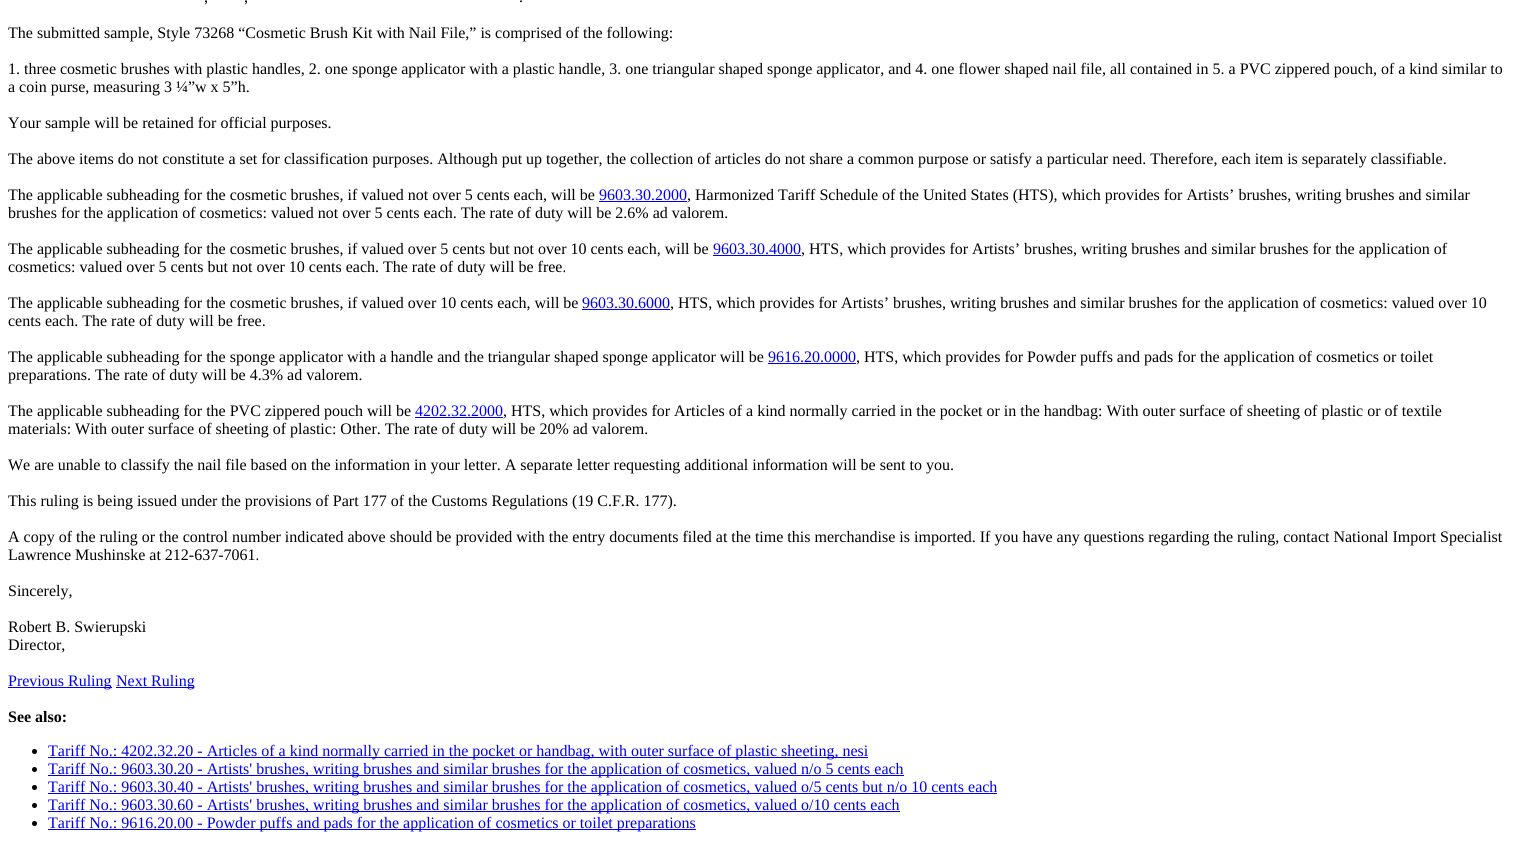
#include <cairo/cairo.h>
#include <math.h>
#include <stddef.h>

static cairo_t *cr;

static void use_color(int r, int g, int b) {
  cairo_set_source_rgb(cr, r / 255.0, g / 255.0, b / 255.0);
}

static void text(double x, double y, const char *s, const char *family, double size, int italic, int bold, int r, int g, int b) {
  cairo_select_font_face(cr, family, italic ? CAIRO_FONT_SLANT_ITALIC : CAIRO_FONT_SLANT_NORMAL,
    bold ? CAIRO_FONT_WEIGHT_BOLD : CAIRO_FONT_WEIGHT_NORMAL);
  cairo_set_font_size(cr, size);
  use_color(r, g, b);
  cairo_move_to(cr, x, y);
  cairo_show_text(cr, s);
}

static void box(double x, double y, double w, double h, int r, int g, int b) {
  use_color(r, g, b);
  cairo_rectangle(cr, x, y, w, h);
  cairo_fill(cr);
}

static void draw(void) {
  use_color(255, 255, 255);
  cairo_paint(cr);
  box(599, 201, 88, 1, 0, 0, 238);
  box(713, 255, 88, 1, 0, 0, 238);
  box(582, 309, 88, 1, 0, 0, 238);
  box(768, 363, 88, 1, 0, 0, 238);
  box(415, 417, 88, 1, 0, 0, 238);
  box(8, 687, 104, 1, 0, 0, 238);
  box(116, 687, 78, 1, 0, 0, 238);
  use_color(0, 0, 0);
  cairo_arc(cr, 34.5, 751.5, 2.5, 0, 2 * M_PI);
  cairo_fill(cr);
  box(48, 757, 820, 1, 0, 0, 238);
  use_color(0, 0, 0);
  cairo_arc(cr, 34.5, 769.5, 2.5, 0, 2 * M_PI);
  cairo_fill(cr);
  box(48, 775, 856, 1, 0, 0, 238);
  use_color(0, 0, 0);
  cairo_arc(cr, 34.5, 787.5, 2.5, 0, 2 * M_PI);
  cairo_fill(cr);
  box(48, 793, 949, 1, 0, 0, 238);
  use_color(0, 0, 0);
  cairo_arc(cr, 34.5, 805.5, 2.5, 0, 2 * M_PI);
  cairo_fill(cr);
  box(48, 811, 852, 1, 0, 0, 238);
  use_color(0, 0, 0);
  cairo_arc(cr, 34.5, 823.5, 2.5, 0, 2 * M_PI);
  cairo_fill(cr);
  box(48, 829, 648, 1, 0, 0, 238);
  text(204, 2, ",", "Liberation Serif", 16, 0, 0, 0, 0, 0);
  text(244, 2, ",", "Liberation Serif", 16, 0, 0, 0, 0, 0);
  text(519, 2, ".", "Liberation Serif", 16, 0, 0, 0, 0, 0);
  text(8, 38, "The submitted sample, Style 73268 “Cosmetic Brush Kit with Nail File,” is comprised of the following:", "Liberation Serif", 16, 0, 0, 0, 0, 0);
  text(8, 74, "1. three cosmetic brushes with plastic handles, 2. one sponge applicator with a plastic handle, 3. one triangular shaped sponge applicator, and 4. one flower shaped nail file, all contained in 5. a PVC zippered pouch, of a kind similar to", "Liberation Serif", 16, 0, 0, 0, 0, 0);
  text(8, 92, "a coin purse, measuring 3 ¼”w x 5”h.", "Liberation Serif", 16, 0, 0, 0, 0, 0);
  text(8, 128, "Your sample will be retained for official purposes.", "Liberation Serif", 16, 0, 0, 0, 0, 0);
  text(8, 164, "The above items do not constitute a set for classification purposes. Although put up together, the collection of articles do not share a common purpose or satisfy a particular need. Therefore, each item is separately classifiable.", "Liberation Serif", 16, 0, 0, 0, 0, 0);
  text(8, 200, "The applicable subheading for the cosmetic brushes, if valued not over 5 cents each, will be", "Liberation Serif", 16, 0, 0, 0, 0, 0);
  text(599, 200, "9603.30.2000", "Liberation Serif", 16, 0, 0, 0, 0, 238);
  text(687, 200, ", Harmonized Tariff Schedule of the United States (HTS), which provides for Artists’ brushes, writing brushes and similar", "Liberation Serif", 16, 0, 0, 0, 0, 0);
  text(8, 218, "brushes for the application of cosmetics: valued not over 5 cents each. The rate of duty will be 2.6% ad valorem.", "Liberation Serif", 16, 0, 0, 0, 0, 0);
  text(8, 254, "The applicable subheading for the cosmetic brushes, if valued over 5 cents but not over 10 cents each, will be", "Liberation Serif", 16, 0, 0, 0, 0, 0);
  text(713, 254, "9603.30.4000", "Liberation Serif", 16, 0, 0, 0, 0, 238);
  text(801, 254, ", HTS, which provides for Artists’ brushes, writing brushes and similar brushes for the application of", "Liberation Serif", 16, 0, 0, 0, 0, 0);
  text(8, 272, "cosmetics: valued over 5 cents but not over 10 cents each. The rate of duty will be free.", "Liberation Serif", 16, 0, 0, 0, 0, 0);
  text(8, 308, "The applicable subheading for the cosmetic brushes, if valued over 10 cents each, will be", "Liberation Serif", 16, 0, 0, 0, 0, 0);
  text(582, 308, "9603.30.6000", "Liberation Serif", 16, 0, 0, 0, 0, 238);
  text(670, 308, ", HTS, which provides for Artists’ brushes, writing brushes and similar brushes for the application of cosmetics: valued over 10", "Liberation Serif", 16, 0, 0, 0, 0, 0);
  text(8, 326, "cents each. The rate of duty will be free.", "Liberation Serif", 16, 0, 0, 0, 0, 0);
  text(8, 362, "The applicable subheading for the sponge applicator with a handle and the triangular shaped sponge applicator will be", "Liberation Serif", 16, 0, 0, 0, 0, 0);
  text(768, 362, "9616.20.0000", "Liberation Serif", 16, 0, 0, 0, 0, 238);
  text(856, 362, ", HTS, which provides for Powder puffs and pads for the application of cosmetics or toilet", "Liberation Serif", 16, 0, 0, 0, 0, 0);
  text(8, 380, "preparations. The rate of duty will be 4.3% ad valorem.", "Liberation Serif", 16, 0, 0, 0, 0, 0);
  text(8, 416, "The applicable subheading for the PVC zippered pouch will be", "Liberation Serif", 16, 0, 0, 0, 0, 0);
  text(415, 416, "4202.32.2000", "Liberation Serif", 16, 0, 0, 0, 0, 238);
  text(503, 416, ", HTS, which provides for Articles of a kind normally carried in the pocket or in the handbag: With outer surface of sheeting of plastic or of textile", "Liberation Serif", 16, 0, 0, 0, 0, 0);
  text(8, 434, "materials: With outer surface of sheeting of plastic: Other. The rate of duty will be 20% ad valorem.", "Liberation Serif", 16, 0, 0, 0, 0, 0);
  text(8, 470, "We are unable to classify the nail file based on the information in your letter. A separate letter requesting additional information will be sent to you.", "Liberation Serif", 16, 0, 0, 0, 0, 0);
  text(8, 506, "This ruling is being issued under the provisions of Part 177 of the Customs Regulations (19 C.F.R. 177).", "Liberation Serif", 16, 0, 0, 0, 0, 0);
  text(8, 542, "A copy of the ruling or the control number indicated above should be provided with the entry documents filed at the time this merchandise is imported. If you have any questions regarding the ruling, contact National Import Specialist", "Liberation Serif", 16, 0, 0, 0, 0, 0);
  text(8, 560, "Lawrence Mushinske at 212-637-7061.", "Liberation Serif", 16, 0, 0, 0, 0, 0);
  text(8, 596, "Sincerely,", "Liberation Serif", 16, 0, 0, 0, 0, 0);
  text(8, 632, "Robert B. Swierupski", "Liberation Serif", 16, 0, 0, 0, 0, 0);
  text(8, 650, "Director,", "Liberation Serif", 16, 0, 0, 0, 0, 0);
  text(8, 686, "Previous Ruling", "Liberation Serif", 16, 0, 0, 0, 0, 238);
  text(116, 686, "Next Ruling", "Liberation Serif", 16, 0, 0, 0, 0, 238);
  text(8, 722, "See also:", "Liberation Serif", 16, 0, 1, 0, 0, 0);
  text(48, 756, "Tariff No.: 4202.32.20 - Articles of a kind normally carried in the pocket or handbag, with outer surface of plastic sheeting, nesi", "Liberation Serif", 16, 0, 0, 0, 0, 238);
  text(48, 774, "Tariff No.: 9603.30.20 - Artists' brushes, writing brushes and similar brushes for the application of cosmetics, valued n/o 5 cents each", "Liberation Serif", 16, 0, 0, 0, 0, 238);
  text(48, 792, "Tariff No.: 9603.30.40 - Artists' brushes, writing brushes and similar brushes for the application of cosmetics, valued o/5 cents but n/o 10 cents each", "Liberation Serif", 16, 0, 0, 0, 0, 238);
  text(48, 810, "Tariff No.: 9603.30.60 - Artists' brushes, writing brushes and similar brushes for the application of cosmetics, valued o/10 cents each", "Liberation Serif", 16, 0, 0, 0, 0, 238);
  text(48, 828, "Tariff No.: 9616.20.00 - Powder puffs and pads for the application of cosmetics or toilet preparations", "Liberation Serif", 16, 0, 0, 0, 0, 238);
}

int main(void) {
  cairo_surface_t *surface = cairo_image_surface_create(CAIRO_FORMAT_RGB24, 1515, 848);
  cr = cairo_create(surface);
  cairo_font_options_t *options = cairo_font_options_create();
  cairo_font_options_set_hint_metrics(options, CAIRO_HINT_METRICS_OFF);
  cairo_font_options_set_hint_style(options, CAIRO_HINT_STYLE_NONE);
  cairo_set_font_options(cr, options);
  cairo_set_miter_limit(cr, 4);
  draw();
  cairo_surface_write_to_png(surface, "out.png");
  cairo_font_options_destroy(options);
  cairo_destroy(cr);
  cairo_surface_destroy(surface);
  return 0;
}
